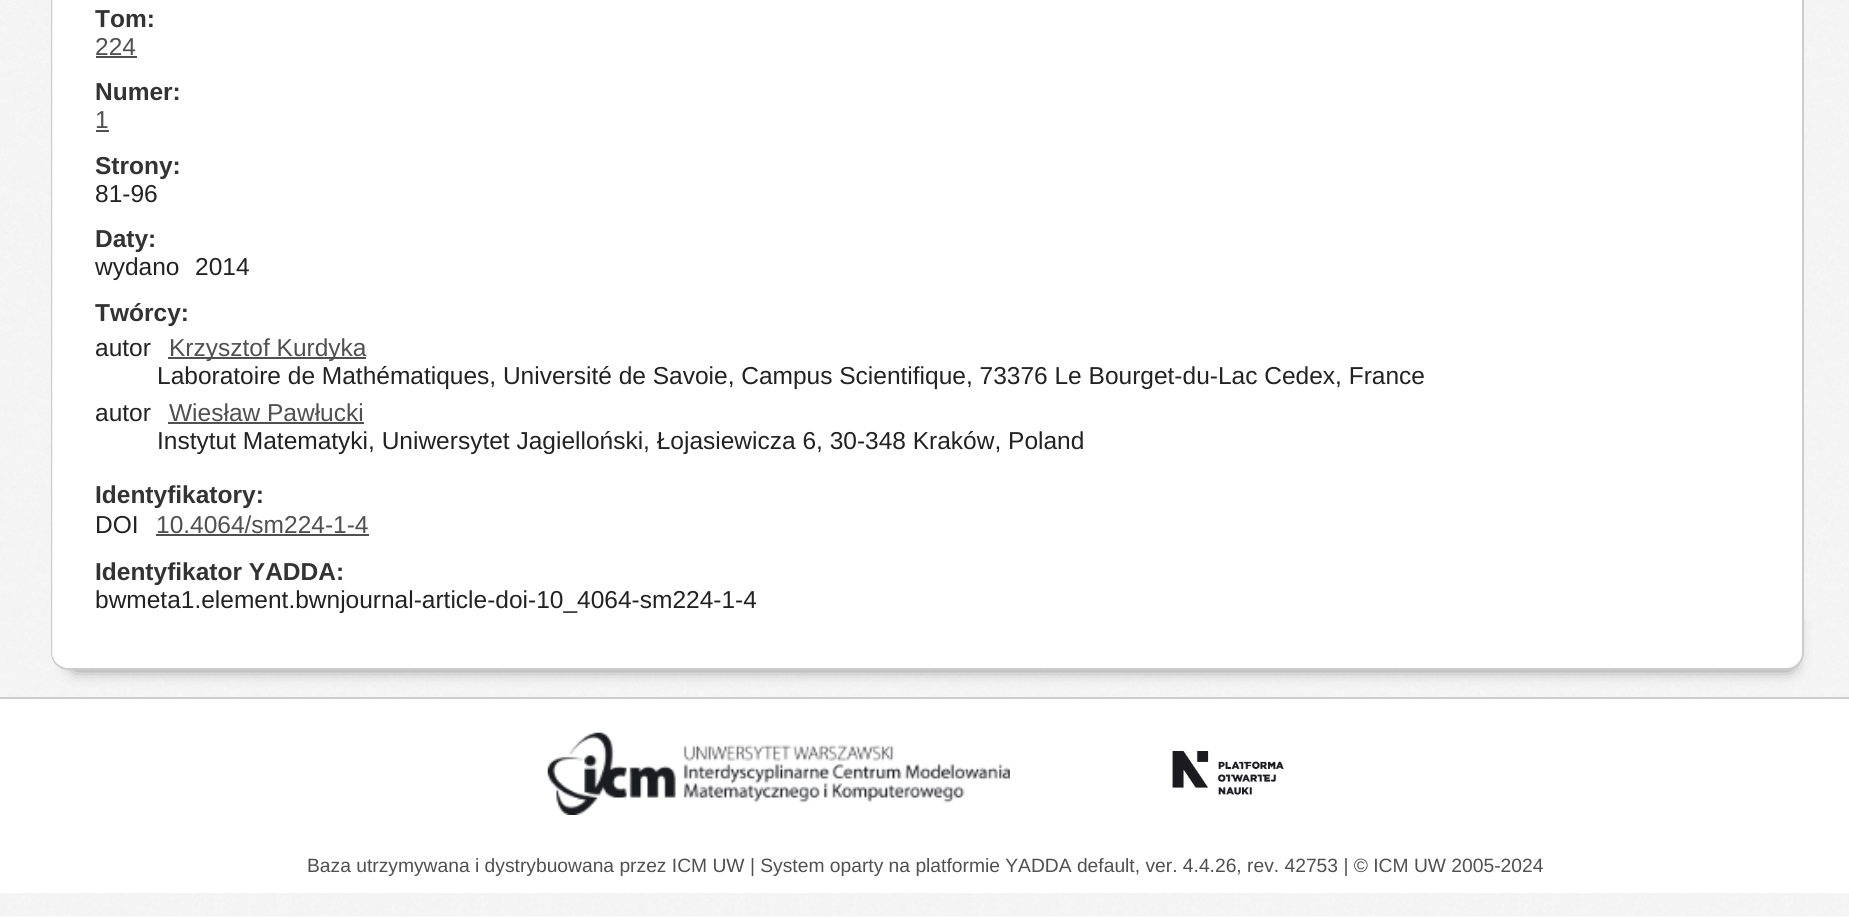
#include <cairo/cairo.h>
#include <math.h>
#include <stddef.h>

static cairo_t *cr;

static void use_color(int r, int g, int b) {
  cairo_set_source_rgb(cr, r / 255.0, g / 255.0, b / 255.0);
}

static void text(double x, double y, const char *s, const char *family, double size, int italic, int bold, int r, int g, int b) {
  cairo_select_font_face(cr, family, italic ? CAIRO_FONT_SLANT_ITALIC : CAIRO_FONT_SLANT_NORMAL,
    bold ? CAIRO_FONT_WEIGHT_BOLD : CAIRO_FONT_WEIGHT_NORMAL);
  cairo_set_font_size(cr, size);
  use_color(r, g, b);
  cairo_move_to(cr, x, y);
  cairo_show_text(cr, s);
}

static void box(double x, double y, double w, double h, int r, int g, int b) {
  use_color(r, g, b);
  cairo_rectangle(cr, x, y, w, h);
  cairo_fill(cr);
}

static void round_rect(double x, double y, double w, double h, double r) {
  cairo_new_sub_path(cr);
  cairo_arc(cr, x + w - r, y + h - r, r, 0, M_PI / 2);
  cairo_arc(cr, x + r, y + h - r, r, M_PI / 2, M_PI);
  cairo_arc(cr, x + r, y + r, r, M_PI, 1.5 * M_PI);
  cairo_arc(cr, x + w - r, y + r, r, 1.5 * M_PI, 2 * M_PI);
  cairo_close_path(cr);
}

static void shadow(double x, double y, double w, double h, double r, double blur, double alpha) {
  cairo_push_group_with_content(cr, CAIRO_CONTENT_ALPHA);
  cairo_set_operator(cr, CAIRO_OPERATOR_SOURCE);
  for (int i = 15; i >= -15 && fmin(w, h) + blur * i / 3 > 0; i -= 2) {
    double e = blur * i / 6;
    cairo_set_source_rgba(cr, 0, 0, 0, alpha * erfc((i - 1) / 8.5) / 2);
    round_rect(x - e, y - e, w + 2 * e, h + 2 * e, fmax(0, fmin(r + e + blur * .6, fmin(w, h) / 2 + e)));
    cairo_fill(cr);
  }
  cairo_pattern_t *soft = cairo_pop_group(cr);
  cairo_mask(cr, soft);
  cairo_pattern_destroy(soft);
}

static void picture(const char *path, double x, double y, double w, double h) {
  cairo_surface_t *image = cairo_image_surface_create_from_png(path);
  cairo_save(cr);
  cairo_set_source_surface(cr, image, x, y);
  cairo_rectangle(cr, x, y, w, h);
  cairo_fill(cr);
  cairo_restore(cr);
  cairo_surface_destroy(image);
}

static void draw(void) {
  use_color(255, 255, 255);
  cairo_paint(cr);
  picture("img_01.png", 0, 0, 1849, 917);
  use_color(0, 0, 0);
  shadow(75, 621, 1715, 44, 0, 9, 0.8);
  use_color(255, 255, 255);
  cairo_new_path(cr);
  cairo_move_to(cr, 53, -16);
  cairo_line_to(cr, 1803, -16);
  cairo_line_to(cr, 1803, 653);
  cairo_curve_to(cr, 1803, 662, 1796, 669, 1787, 669);
  cairo_line_to(cr, 69, 669);
  cairo_curve_to(cr, 60, 669, 53, 662, 53, 653);
  cairo_close_path(cr);
  cairo_fill(cr);
  use_color(204, 204, 204);
  cairo_set_fill_rule(cr, CAIRO_FILL_RULE_EVEN_ODD);
  cairo_new_path(cr);
  cairo_move_to(cr, 51, -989);
  cairo_line_to(cr, 1804, -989);
  cairo_line_to(cr, 1804, 653);
  cairo_curve_to(cr, 1804, 662, 1796, 670, 1787, 670);
  cairo_line_to(cr, 68, 670);
  cairo_curve_to(cr, 59, 670, 51, 662, 51, 653);
  cairo_close_path(cr);
  cairo_move_to(cr, 52, -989);
  cairo_line_to(cr, 1802, -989);
  cairo_line_to(cr, 1802, 653);
  cairo_curve_to(cr, 1802, 661, 1795, 668, 1787, 668);
  cairo_line_to(cr, 68, 668);
  cairo_curve_to(cr, 60, 668, 52, 661, 52, 653);
  cairo_close_path(cr);
  cairo_fill(cr);
  box(96, 56, 41, 2, 81, 80, 80);
  box(96, 130, 13, 2, 81, 80, 80);
  box(168, 357, 198, 2, 81, 80, 80);
  box(168, 422, 196, 2, 81, 80, 80);
  box(156, 534, 213, 2, 81, 80, 80);
  box(0, 699, 1849, 194, 255, 255, 255);
  box(0, 697, 1849, 2, 204, 204, 204);
  picture("img_02.png", 547, 732, 463, 83);
  picture("img_03.png", 1172, 751, 112, 44);
  text(95, 27, "Tom:", "Liberation Sans", 24.5, 0, 1, 51, 51, 51);
  text(95, 55, "224", "Liberation Sans", 24.5, 0, 0, 81, 80, 80);
  text(95, 100, "Numer:", "Liberation Sans", 24.5, 0, 1, 51, 51, 51);
  text(95, 128, "1", "Liberation Sans", 24.5, 0, 0, 81, 80, 80);
  text(95, 174, "Strony:", "Liberation Sans", 24.5, 0, 1, 51, 51, 51);
  text(95, 202, "81-96", "Liberation Sans", 24.5, 0, 0, 34, 34, 34);
  text(95, 247, "Daty:", "Liberation Sans", 24.5, 0, 1, 51, 51, 51);
  text(95, 275, "wydano", "Liberation Sans", 24.5, 0, 0, 34, 34, 34);
  text(195, 275, "2014", "Liberation Sans", 24.5, 0, 0, 34, 34, 34);
  text(95, 321, "Twórcy:", "Liberation Sans", 24.5, 0, 1, 51, 51, 51);
  text(95, 356, "autor", "Liberation Sans", 24.5, 0, 0, 34, 34, 34);
  text(169, 356, "Krzysztof Kurdyka", "Liberation Sans", 24.5, 0, 0, 81, 80, 80);
  text(157, 384, "Laboratoire de Mathématiques, Université de Savoie, Campus Scientifique, 73376 Le Bourget-du-Lac Cedex, France", "Liberation Sans", 24.5, 0, 0, 34, 34, 34);
  text(95, 421, "autor", "Liberation Sans", 24.5, 0, 0, 34, 34, 34);
  text(169, 421, "Wiesław Pawłucki", "Liberation Sans", 24.5, 0, 0, 81, 80, 80);
  text(157, 449, "Instytut Matematyki, Uniwersytet Jagielloński, Łojasiewicza 6, 30-348 Kraków, Poland", "Liberation Sans", 24.5, 0, 0, 34, 34, 34);
  text(95, 503, "Identyfikatory:", "Liberation Sans", 24.5, 0, 1, 51, 51, 51);
  box(156, 508, 90, 1, 255, 255, 255);
  text(95, 533, "DOI", "Liberation Sans", 24.5, 0, 0, 34, 34, 34);
  text(156, 533, "10.4064/sm224-1-4", "Liberation Sans", 24.5, 0, 0, 81, 80, 80);
  text(95, 580, "Identyfikator YADDA:", "Liberation Sans", 24.5, 0, 1, 51, 51, 51);
  text(95, 608, "bwmeta1.element.bwnjournal-article-doi-10_4064-sm224-1-4", "Liberation Sans", 24.5, 0, 0, 34, 34, 34);
  text(307, 872, "Baza utrzymywana i dystrybuowana przez ICM UW | System oparty na platformie YADDA default, ver. 4.4.26, rev. 42753 | © ICM UW 2005-2024", "Liberation Sans", 19.25, 0, 0, 81, 80, 80);
}

int main(void) {
  cairo_surface_t *surface = cairo_image_surface_create(CAIRO_FORMAT_RGB24, 1849, 917);
  cr = cairo_create(surface);
  cairo_font_options_t *options = cairo_font_options_create();
  cairo_font_options_set_hint_metrics(options, CAIRO_HINT_METRICS_OFF);
  cairo_font_options_set_hint_style(options, CAIRO_HINT_STYLE_NONE);
  cairo_set_font_options(cr, options);
  cairo_set_miter_limit(cr, 4);
  draw();
  cairo_surface_write_to_png(surface, "out.png");
  cairo_font_options_destroy(options);
  cairo_destroy(cr);
  cairo_surface_destroy(surface);
  return 0;
}
